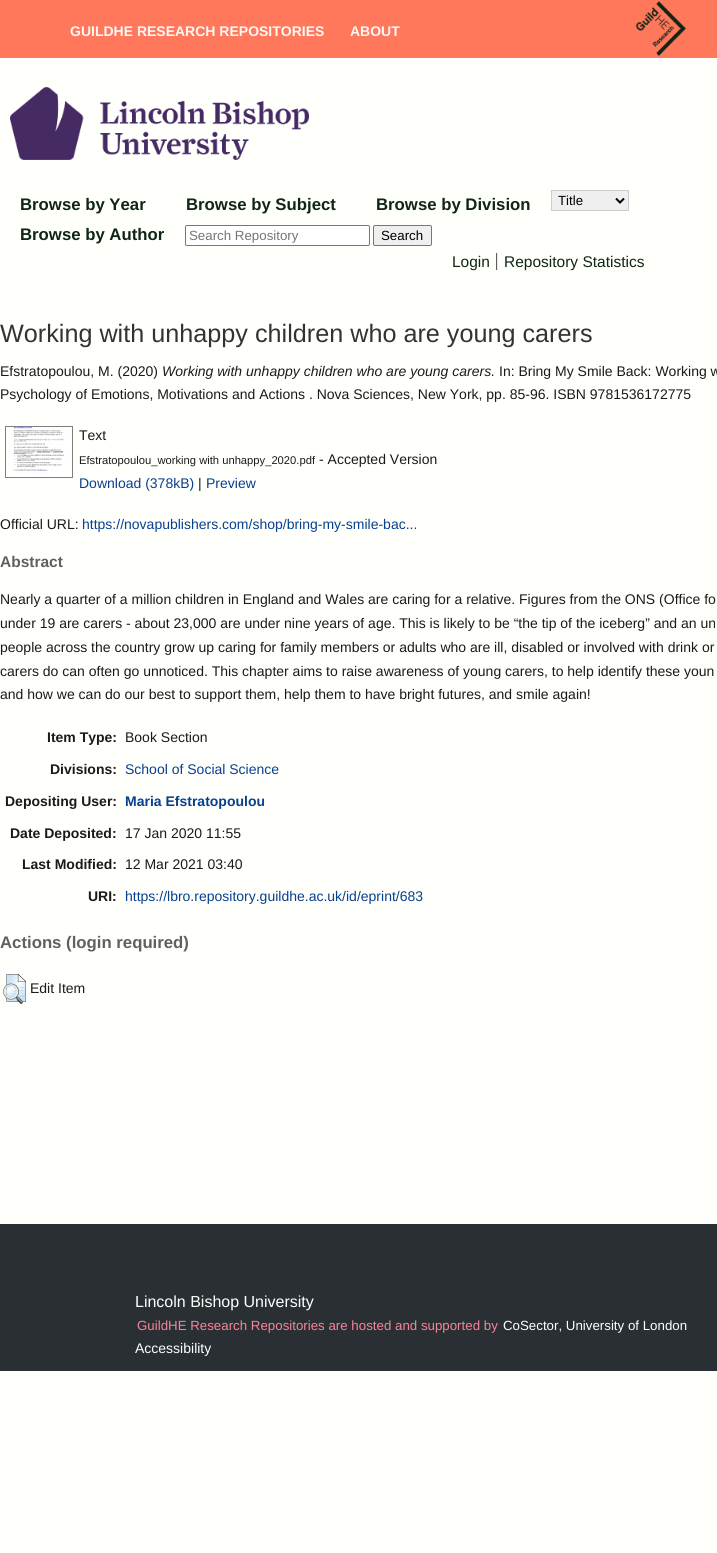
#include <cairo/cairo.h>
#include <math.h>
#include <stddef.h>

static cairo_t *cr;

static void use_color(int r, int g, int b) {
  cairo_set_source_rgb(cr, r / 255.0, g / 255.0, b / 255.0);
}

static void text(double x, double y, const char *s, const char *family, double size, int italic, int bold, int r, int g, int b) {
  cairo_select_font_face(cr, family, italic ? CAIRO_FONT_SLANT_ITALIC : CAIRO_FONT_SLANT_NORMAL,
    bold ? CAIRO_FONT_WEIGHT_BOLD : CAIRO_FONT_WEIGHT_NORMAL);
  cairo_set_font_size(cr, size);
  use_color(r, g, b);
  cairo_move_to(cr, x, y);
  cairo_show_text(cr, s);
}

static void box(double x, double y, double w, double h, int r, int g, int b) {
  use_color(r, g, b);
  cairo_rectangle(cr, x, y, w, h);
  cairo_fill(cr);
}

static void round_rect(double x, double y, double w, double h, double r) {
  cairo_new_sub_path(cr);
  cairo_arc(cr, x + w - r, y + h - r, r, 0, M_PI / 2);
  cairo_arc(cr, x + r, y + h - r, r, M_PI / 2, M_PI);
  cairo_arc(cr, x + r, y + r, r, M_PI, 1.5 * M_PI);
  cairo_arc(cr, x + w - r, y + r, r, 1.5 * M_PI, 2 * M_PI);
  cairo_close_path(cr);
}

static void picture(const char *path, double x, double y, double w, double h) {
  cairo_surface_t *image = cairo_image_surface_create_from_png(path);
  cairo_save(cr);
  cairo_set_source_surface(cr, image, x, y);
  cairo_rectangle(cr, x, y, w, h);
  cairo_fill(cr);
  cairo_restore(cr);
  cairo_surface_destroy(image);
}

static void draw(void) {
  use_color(255, 255, 252);
  cairo_paint(cr);
  box(0, 0, 717, 58, 255, 120, 91);
  picture("img_01.png", 635, 1, 52, 55);
  picture("img_02.png", 10, 87, 299, 73);
  use_color(239, 239, 239);
  cairo_rectangle(cr, 551.5, 190.5, 77, 20);
  cairo_fill_preserve(cr);
  use_color(204, 204, 204);
  cairo_set_line_width(cr, 1);
  cairo_stroke(cr);
  cairo_new_path(cr);
  cairo_move_to(cr, 616, 198.5);
  cairo_line_to(cr, 620, 202.5);
  cairo_line_to(cr, 624, 198.5);
  use_color(0, 0, 0);
  cairo_set_line_width(cr, 2);
  cairo_stroke(cr);
  use_color(255, 255, 255);
  round_rect(185.5, 225.5, 184, 20, 1.5);
  cairo_fill_preserve(cr);
  use_color(118, 118, 118);
  cairo_set_line_width(cr, 1);
  cairo_stroke(cr);
  use_color(239, 239, 239);
  round_rect(373.5, 225.5, 58, 20, 1.5);
  cairo_fill_preserve(cr);
  use_color(118, 118, 118);
  cairo_stroke(cr);
  box(496, 253, 1, 17, 96, 96, 96);
  box(497, 253, 1, 17, 232, 232, 232);
  picture("img_03.png", 5, 426, 68, 52);
  picture("img_04.png", 3, 974, 23, 30);
  box(0, 1224, 717, 147, 41, 47, 51);
  text(70, 36, "GUILDHE RESEARCH REPOSITORIES", "Liberation Sans", 14, 0, 1, 255, 247, 245);
  text(350, 36, "ABOUT", "Liberation Sans", 14, 0, 1, 255, 247, 245);
  text(20, 210, "Browse by Year", "Liberation Sans", 16.75, 0, 1, 15, 37, 22);
  text(558, 205, "Title", "Liberation Sans", 13.3, 0, 0, 0, 0, 0);
  text(189, 240, "Search Repository", "Liberation Sans", 13.3, 0, 0, 117, 117, 117);
  text(381, 240, "Search", "Liberation Sans", 13.3, 0, 0, 0, 0, 0);
  text(186, 210, "Browse by Subject", "Liberation Sans", 16.75, 0, 1, 15, 37, 22);
  text(376, 210, "Browse by Division", "Liberation Sans", 16.75, 0, 1, 15, 37, 22);
  text(20, 240, "Browse by Author", "Liberation Sans", 16.75, 0, 1, 15, 37, 22);
  text(452, 267, "Login", "Liberation Sans", 15.5, 0, 0, 15, 37, 22);
  text(504, 267, "Repository Statistics", "Liberation Sans", 15.5, 0, 0, 15, 37, 22);
  text(0, 342, "Working with unhappy children who are young carers", "Liberation Sans", 25.2, 0, 0, 51, 51, 51);
  text(0, 376, "Efstratopoulou, M. (2020)", "Liberation Sans", 14, 0, 0, 26, 26, 26);
  text(162, 376, "Working with unhappy children who are young carers.", "Liberation Sans", 14, 1, 0, 26, 26, 26);
  text(499, 376, "In: Bring My Smile Back: Working w", "Liberation Sans", 14, 0, 0, 26, 26, 26);
  text(0, 399, "Psychology of Emotions, Motivations and Actions . Nova Sciences, New York, pp. 85-96. ISBN 9781536172775", "Liberation Sans", 14, 0, 0, 26, 26, 26);
  text(79, 440, "Text", "Liberation Sans", 14, 0, 0, 26, 26, 26);
  text(79, 464, "Efstratopoulou_working with unhappy_2020.pdf", "Liberation Sans", 11.2, 0, 0, 26, 26, 26);
  text(319, 464, "- Accepted Version", "Liberation Sans", 14, 0, 0, 26, 26, 26);
  text(79, 488, "Download (378kB)", "Liberation Sans", 14, 0, 0, 7, 64, 142);
  text(198, 488, "|", "Liberation Sans", 14, 0, 0, 26, 26, 26);
  text(206, 488, "Preview", "Liberation Sans", 14, 0, 0, 7, 64, 142);
  text(0, 529, "Official URL:", "Liberation Sans", 14, 0, 0, 26, 26, 26);
  text(82, 529, "https://novapublishers.com/shop/bring-my-smile-bac...", "Liberation Sans", 14, 0, 0, 7, 64, 142);
  text(0, 567, "Abstract", "Liberation Sans", 15.5, 0, 1, 96, 96, 96);
  text(0, 604, "Nearly a quarter of a million children in England and Wales are caring for a relative. Figures from the ONS (Office fo", "Liberation Sans", 14, 0, 0, 26, 26, 26);
  text(0, 628, "under 19 are carers - about 23,000 are under nine years of age. This is likely to be “the tip of the iceberg” and an un", "Liberation Sans", 14, 0, 0, 26, 26, 26);
  text(0, 652, "people across the country grow up caring for family members or adults who are ill, disabled or involved with drink or", "Liberation Sans", 14, 0, 0, 26, 26, 26);
  text(0, 676, "carers do can often go unnoticed. This chapter aims to raise awareness of young carers, to help identify these youn", "Liberation Sans", 14, 0, 0, 26, 26, 26);
  text(0, 699, "and how we can do our best to support them, help them to have bright futures, and smile again!", "Liberation Sans", 14, 0, 0, 26, 26, 26);
  text(47, 742, "Item Type:", "Liberation Sans", 14, 0, 1, 26, 26, 26);
  text(125, 742, "Book Section", "Liberation Sans", 14, 0, 0, 26, 26, 26);
  text(50, 774, "Divisions:", "Liberation Sans", 14, 0, 1, 26, 26, 26);
  text(125, 774, "School of Social Science", "Liberation Sans", 14, 0, 0, 7, 64, 142);
  text(5, 806, "Depositing User:", "Liberation Sans", 14, 0, 1, 26, 26, 26);
  text(125, 806, "Maria Efstratopoulou", "Liberation Sans", 14, 0, 1, 7, 64, 142);
  text(10, 838, "Date Deposited:", "Liberation Sans", 14, 0, 1, 26, 26, 26);
  text(125, 838, "17 Jan 2020 11:55", "Liberation Sans", 14, 0, 0, 26, 26, 26);
  text(22, 869, "Last Modified:", "Liberation Sans", 14, 0, 1, 26, 26, 26);
  text(125, 869, "12 Mar 2021 03:40", "Liberation Sans", 14, 0, 0, 26, 26, 26);
  text(88, 901, "URI:", "Liberation Sans", 14, 0, 1, 26, 26, 26);
  text(125, 901, "https://lbro.repository.guildhe.ac.uk/id/eprint/683", "Liberation Sans", 14, 0, 0, 7, 64, 142);
  text(0, 948, "Actions (login required)", "Liberation Sans", 16.75, 0, 1, 96, 96, 96);
  text(30, 993, "Edit Item", "Liberation Sans", 14, 0, 0, 26, 26, 26);
  text(135, 1307, "Lincoln Bishop University", "Liberation Sans", 16, 0, 0, 255, 255, 255);
  text(137, 1330, "GuildHE Research Repositories are hosted and supported by", "Liberation Sans", 13.3, 0, 0, 245, 133, 151);
  text(503, 1330, "CoSector, University of London", "Liberation Sans", 13.3, 0, 0, 255, 255, 255);
  text(135, 1353, "Accessibility", "Liberation Sans", 14, 0, 0, 255, 255, 255);
}

int main(void) {
  cairo_surface_t *surface = cairo_image_surface_create(CAIRO_FORMAT_RGB24, 717, 1553);
  cr = cairo_create(surface);
  cairo_font_options_t *options = cairo_font_options_create();
  cairo_font_options_set_hint_metrics(options, CAIRO_HINT_METRICS_OFF);
  cairo_font_options_set_hint_style(options, CAIRO_HINT_STYLE_NONE);
  cairo_set_font_options(cr, options);
  cairo_set_miter_limit(cr, 4);
  draw();
  cairo_surface_write_to_png(surface, "out.png");
  cairo_font_options_destroy(options);
  cairo_destroy(cr);
  cairo_surface_destroy(surface);
  return 0;
}
